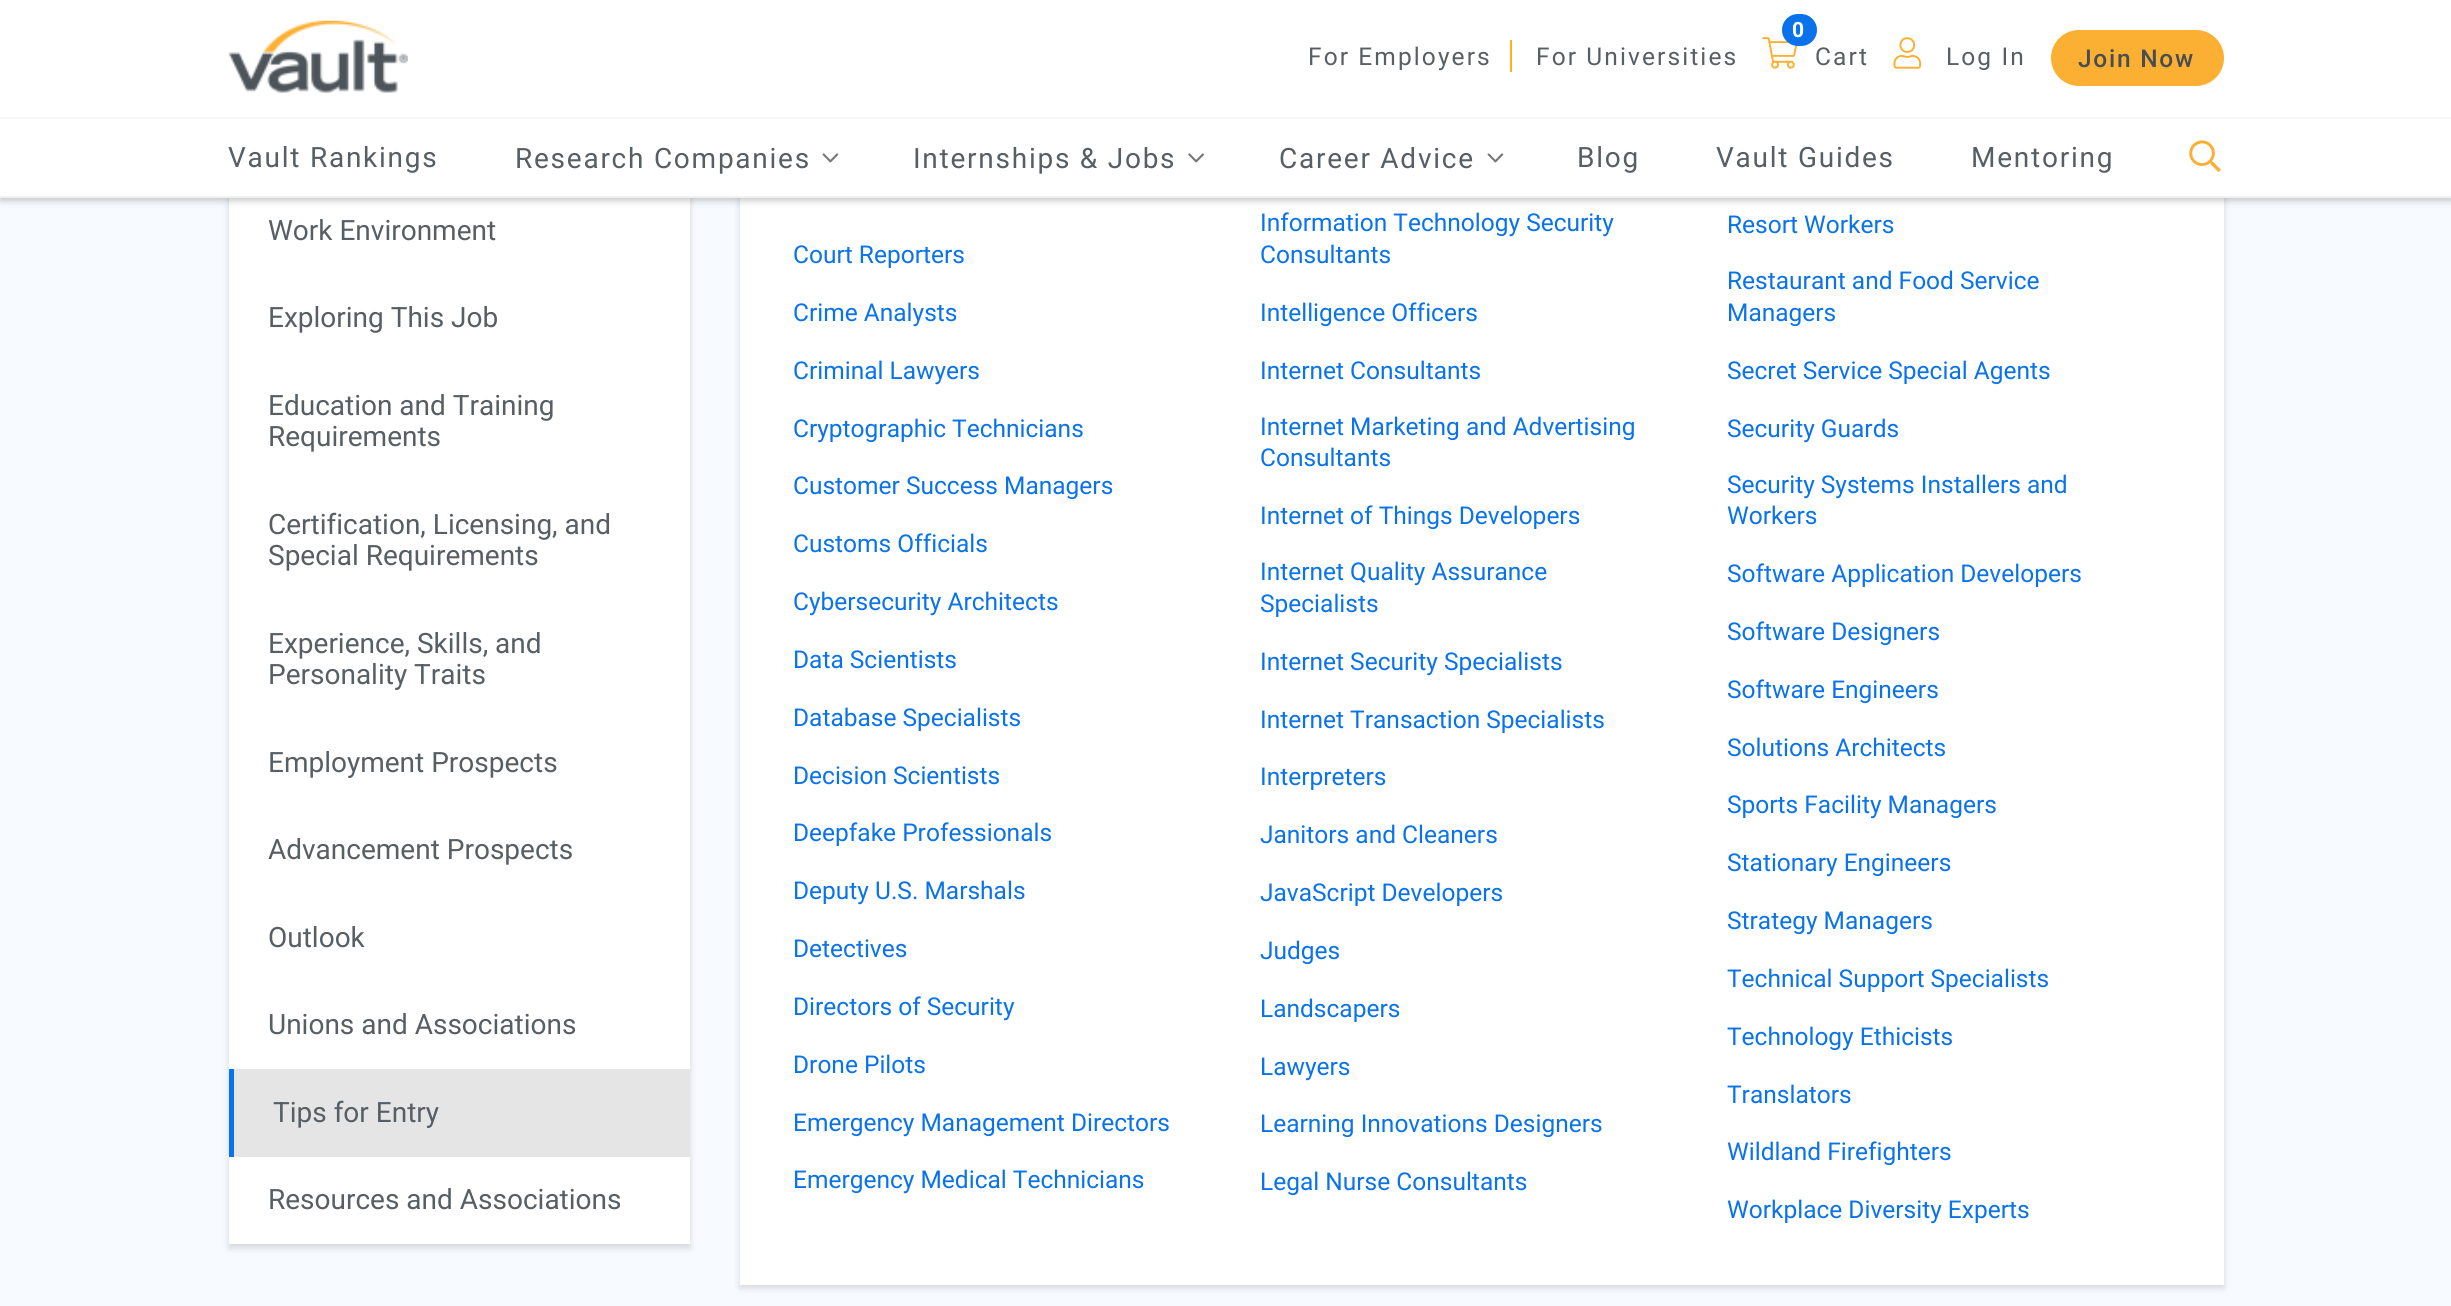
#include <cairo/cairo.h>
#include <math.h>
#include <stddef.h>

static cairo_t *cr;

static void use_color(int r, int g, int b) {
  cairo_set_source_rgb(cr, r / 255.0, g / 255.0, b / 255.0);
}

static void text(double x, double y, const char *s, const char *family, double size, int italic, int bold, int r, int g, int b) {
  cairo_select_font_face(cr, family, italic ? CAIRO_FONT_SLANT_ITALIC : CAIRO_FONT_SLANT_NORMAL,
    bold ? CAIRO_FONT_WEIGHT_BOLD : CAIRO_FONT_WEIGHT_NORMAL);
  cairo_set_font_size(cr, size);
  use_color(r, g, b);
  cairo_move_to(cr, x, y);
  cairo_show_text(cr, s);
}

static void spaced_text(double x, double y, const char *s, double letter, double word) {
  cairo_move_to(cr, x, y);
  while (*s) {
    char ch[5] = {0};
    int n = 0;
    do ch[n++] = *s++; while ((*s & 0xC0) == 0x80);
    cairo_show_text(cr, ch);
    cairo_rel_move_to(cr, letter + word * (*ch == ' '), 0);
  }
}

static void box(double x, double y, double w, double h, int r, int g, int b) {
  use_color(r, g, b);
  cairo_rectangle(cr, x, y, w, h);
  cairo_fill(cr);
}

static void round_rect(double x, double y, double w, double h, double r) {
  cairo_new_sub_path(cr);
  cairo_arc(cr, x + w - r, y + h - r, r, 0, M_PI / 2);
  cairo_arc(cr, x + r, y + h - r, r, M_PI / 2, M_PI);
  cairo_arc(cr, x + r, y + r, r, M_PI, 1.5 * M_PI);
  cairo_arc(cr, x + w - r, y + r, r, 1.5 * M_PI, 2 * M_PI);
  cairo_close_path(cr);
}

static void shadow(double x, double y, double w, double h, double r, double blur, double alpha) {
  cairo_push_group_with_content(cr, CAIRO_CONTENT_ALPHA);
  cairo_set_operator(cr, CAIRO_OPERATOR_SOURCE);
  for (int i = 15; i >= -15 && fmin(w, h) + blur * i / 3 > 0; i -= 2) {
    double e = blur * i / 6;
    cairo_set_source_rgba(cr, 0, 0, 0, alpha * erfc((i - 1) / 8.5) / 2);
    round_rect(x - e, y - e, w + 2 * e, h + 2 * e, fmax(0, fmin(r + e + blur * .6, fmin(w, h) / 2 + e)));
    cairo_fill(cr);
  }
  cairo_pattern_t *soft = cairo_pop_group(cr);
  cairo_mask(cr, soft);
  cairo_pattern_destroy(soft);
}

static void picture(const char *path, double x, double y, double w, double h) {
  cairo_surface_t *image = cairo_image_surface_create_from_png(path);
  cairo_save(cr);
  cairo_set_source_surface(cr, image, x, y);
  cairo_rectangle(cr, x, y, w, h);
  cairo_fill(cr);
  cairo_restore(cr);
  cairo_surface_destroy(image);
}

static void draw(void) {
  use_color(247, 251, 255);
  cairo_paint(cr);
  use_color(0, 0, 0);
  shadow(229, -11, 461, 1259, 0, 3.5, 0.15);
  box(229, 198, 461, 1046, 255, 255, 255);
  use_color(0, 0, 0);
  shadow(740, -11, 1484, 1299, 0, 3.5, 0.15);
  box(740, 198, 1484, 1087, 255, 255, 255);
  use_color(0, 0, 0);
  shadow(0, 4, 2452, 197, 0, 3.5, 0.21);
  box(0, 0, 2451, 196, 255, 255, 255);
  box(0, 196, 2451, 2, 240, 241, 241);
  box(0, 117, 2451, 2, 246, 246, 245);
  picture("img_01.png", 228, 20, 180, 73);
  box(1510, 40, 2, 32, 254, 177, 28);
  picture("img_02.png", 1762, 37, 36, 32);
  use_color(10, 115, 235);
  round_rect(1782, 14, 35, 32, 16);
  cairo_fill(cr);
  picture("img_03.png", 1893, 37, 29, 32);
  use_color(252, 176, 51);
  round_rect(2051, 30, 173, 56, 28);
  cairo_fill(cr);
  picture("img_04.png", 822, 153, 17, 10);
  picture("img_05.png", 1188, 153, 16, 10);
  picture("img_04.png", 1487, 153, 17, 10);
  picture("img_06.png", 2189, 140, 32, 32);
  box(234, 1069, 456, 88, 229, 229, 229);
  box(229, 1069, 5, 88, 10, 115, 235);
  cairo_select_font_face(cr, "Roboto", CAIRO_FONT_SLANT_NORMAL, CAIRO_FONT_WEIGHT_NORMAL);
  cairo_set_font_size(cr, 24.5);
  use_color(88, 95, 100);
  spaced_text(1308, 65, "For Employers", 2.1, 0);
  spaced_text(1536, 65, "For Universities", 2.1, 0);
  cairo_select_font_face(cr, "Roboto", CAIRO_FONT_SLANT_NORMAL, CAIRO_FONT_WEIGHT_BOLD);
  cairo_set_font_size(cr, 21);
  use_color(255, 255, 255);
  spaced_text(1792, 37, "0", 2.1, 0);
  cairo_select_font_face(cr, "Roboto", CAIRO_FONT_SLANT_NORMAL, CAIRO_FONT_WEIGHT_NORMAL);
  cairo_set_font_size(cr, 24.5);
  use_color(88, 95, 100);
  spaced_text(1815, 65, "Cart", 2.1, 0);
  spaced_text(1946, 65, "Log In", 2.1, 0);
  cairo_select_font_face(cr, "Roboto Medium", CAIRO_FONT_SLANT_NORMAL, CAIRO_FONT_WEIGHT_NORMAL);
  use_color(72, 77, 81);
  spaced_text(2078, 67, "Join Now", 1.75, 0);
  cairo_select_font_face(cr, "Roboto", CAIRO_FONT_SLANT_NORMAL, CAIRO_FONT_WEIGHT_NORMAL);
  cairo_set_font_size(cr, 28);
  use_color(88, 95, 100);
  spaced_text(228, 167, "Vault Rankings", 1.75, 0);
  spaced_text(515, 168, "Research Companies", 1.75, 0);
  spaced_text(913, 168, "Internships & Jobs", 1.75, 0);
  spaced_text(1279, 168, "Career Advice", 1.75, 0);
  spaced_text(1577, 167, "Blog", 1.75, 0);
  spaced_text(1716, 167, "Vault Guides", 1.75, 0);
  spaced_text(1971, 167, "Mentoring", 1.75, 0);
  text(268, 240, "Work Environment", "Roboto", 28, 0, 0, 88, 95, 100);
  text(268, 327, "Exploring This Job", "Roboto", 28, 0, 0, 88, 95, 100);
  text(268, 415, "Education and Training", "Roboto", 28, 0, 0, 88, 95, 100);
  text(268, 446, "Requirements", "Roboto", 28, 0, 0, 88, 95, 100);
  text(268, 534, "Certification, Licensing, and", "Roboto", 28, 0, 0, 88, 95, 100);
  text(268, 565, "Special Requirements", "Roboto", 28, 0, 0, 88, 95, 100);
  text(268, 653, "Experience, Skills, and", "Roboto", 28, 0, 0, 88, 95, 100);
  text(268, 684, "Personality Traits", "Roboto", 28, 0, 0, 88, 95, 100);
  text(268, 772, "Employment Prospects", "Roboto", 28, 0, 0, 88, 95, 100);
  text(268, 859, "Advancement Prospects", "Roboto", 28, 0, 0, 88, 95, 100);
  text(268, 947, "Outlook", "Roboto", 28, 0, 0, 88, 95, 100);
  text(268, 1034, "Unions and Associations", "Roboto", 28, 0, 0, 88, 95, 100);
  text(273, 1122, "Tips for Entry", "Roboto", 28, 0, 0, 88, 95, 100);
  text(268, 1209, "Resources and Associations", "Roboto", 28, 0, 0, 88, 95, 100);
  text(1260, 231, "Information Technology Security", "Roboto", 24.5, 0, 0, 10, 115, 235);
  text(1260, 263, "Consultants", "Roboto", 24.5, 0, 0, 10, 115, 235);
  text(1727, 233, "Resort Workers", "Roboto", 24.5, 0, 0, 10, 115, 235);
  text(793, 263, "Court Reporters", "Roboto", 24.5, 0, 0, 10, 115, 235);
  text(793, 321, "Crime Analysts", "Roboto", 24.5, 0, 0, 10, 115, 235);
  text(1260, 321, "Intelligence Officers", "Roboto", 24.5, 0, 0, 10, 115, 235);
  text(1727, 289, "Restaurant and Food Service", "Roboto", 24.5, 0, 0, 10, 115, 235);
  text(1727, 321, "Managers", "Roboto", 24.5, 0, 0, 10, 115, 235);
  text(793, 379, "Criminal Lawyers", "Roboto", 24.5, 0, 0, 10, 115, 235);
  text(1260, 379, "Internet Consultants", "Roboto", 24.5, 0, 0, 10, 115, 235);
  text(1727, 379, "Secret Service Special Agents", "Roboto", 24.5, 0, 0, 10, 115, 235);
  text(793, 437, "Cryptographic Technicians", "Roboto", 24.5, 0, 0, 10, 115, 235);
  text(1260, 435, "Internet Marketing and Advertising", "Roboto", 24.5, 0, 0, 10, 115, 235);
  text(1260, 466, "Consultants", "Roboto", 24.5, 0, 0, 10, 115, 235);
  text(1727, 437, "Security Guards", "Roboto", 24.5, 0, 0, 10, 115, 235);
  text(793, 494, "Customer Success Managers", "Roboto", 24.5, 0, 0, 10, 115, 235);
  text(1727, 493, "Security Systems Installers and", "Roboto", 24.5, 0, 0, 10, 115, 235);
  text(1727, 524, "Workers", "Roboto", 24.5, 0, 0, 10, 115, 235);
  text(1260, 524, "Internet of Things Developers", "Roboto", 24.5, 0, 0, 10, 115, 235);
  text(793, 552, "Customs Officials", "Roboto", 24.5, 0, 0, 10, 115, 235);
  text(1260, 580, "Internet Quality Assurance", "Roboto", 24.5, 0, 0, 10, 115, 235);
  text(1260, 612, "Specialists", "Roboto", 24.5, 0, 0, 10, 115, 235);
  text(1727, 582, "Software Application Developers", "Roboto", 24.5, 0, 0, 10, 115, 235);
  text(793, 610, "Cybersecurity Architects", "Roboto", 24.5, 0, 0, 10, 115, 235);
  text(1727, 640, "Software Designers", "Roboto", 24.5, 0, 0, 10, 115, 235);
  text(793, 668, "Data Scientists", "Roboto", 24.5, 0, 0, 10, 115, 235);
  text(1260, 670, "Internet Security Specialists", "Roboto", 24.5, 0, 0, 10, 115, 235);
  text(1727, 698, "Software Engineers", "Roboto", 24.5, 0, 0, 10, 115, 235);
  text(793, 726, "Database Specialists", "Roboto", 24.5, 0, 0, 10, 115, 235);
  text(1260, 728, "Internet Transaction Specialists", "Roboto", 24.5, 0, 0, 10, 115, 235);
  text(1727, 756, "Solutions Architects", "Roboto", 24.5, 0, 0, 10, 115, 235);
  text(793, 784, "Decision Scientists", "Roboto", 24.5, 0, 0, 10, 115, 235);
  text(1260, 785, "Interpreters", "Roboto", 24.5, 0, 0, 10, 115, 235);
  text(1727, 813, "Sports Facility Managers", "Roboto", 24.5, 0, 0, 10, 115, 235);
  text(793, 841, "Deepfake Professionals", "Roboto", 24.5, 0, 0, 10, 115, 235);
  text(1260, 843, "Janitors and Cleaners", "Roboto", 24.5, 0, 0, 10, 115, 235);
  text(1727, 871, "Stationary Engineers", "Roboto", 24.5, 0, 0, 10, 115, 235);
  text(793, 899, "Deputy U.S. Marshals", "Roboto", 24.5, 0, 0, 10, 115, 235);
  text(1260, 901, "JavaScript Developers", "Roboto", 24.5, 0, 0, 10, 115, 235);
  text(1727, 929, "Strategy Managers", "Roboto", 24.5, 0, 0, 10, 115, 235);
  text(793, 957, "Detectives", "Roboto", 24.5, 0, 0, 10, 115, 235);
  text(1260, 959, "Judges", "Roboto", 24.5, 0, 0, 10, 115, 235);
  text(1727, 987, "Technical Support Specialists", "Roboto", 24.5, 0, 0, 10, 115, 235);
  text(793, 1015, "Directors of Security", "Roboto", 24.5, 0, 0, 10, 115, 235);
  text(1260, 1017, "Landscapers", "Roboto", 24.5, 0, 0, 10, 115, 235);
  text(1727, 1045, "Technology Ethicists", "Roboto", 24.5, 0, 0, 10, 115, 235);
  text(793, 1073, "Drone Pilots", "Roboto", 24.5, 0, 0, 10, 115, 235);
  text(1260, 1075, "Lawyers", "Roboto", 24.5, 0, 0, 10, 115, 235);
  text(1727, 1103, "Translators", "Roboto", 24.5, 0, 0, 10, 115, 235);
  text(793, 1131, "Emergency Management Directors", "Roboto", 24.5, 0, 0, 10, 115, 235);
  text(1260, 1132, "Learning Innovations Designers", "Roboto", 24.5, 0, 0, 10, 115, 235);
  text(1727, 1160, "Wildland Firefighters", "Roboto", 24.5, 0, 0, 10, 115, 235);
  text(793, 1188, "Emergency Medical Technicians", "Roboto", 24.5, 0, 0, 10, 115, 235);
  text(1260, 1190, "Legal Nurse Consultants", "Roboto", 24.5, 0, 0, 10, 115, 235);
  text(1727, 1218, "Workplace Diversity Experts", "Roboto", 24.5, 0, 0, 10, 115, 235);
}

int main(void) {
  cairo_surface_t *surface = cairo_image_surface_create(CAIRO_FORMAT_RGB24, 2451, 1306);
  cr = cairo_create(surface);
  cairo_font_options_t *options = cairo_font_options_create();
  cairo_font_options_set_hint_metrics(options, CAIRO_HINT_METRICS_OFF);
  cairo_font_options_set_hint_style(options, CAIRO_HINT_STYLE_NONE);
  cairo_set_font_options(cr, options);
  cairo_set_miter_limit(cr, 4);
  draw();
  cairo_surface_write_to_png(surface, "out.png");
  cairo_font_options_destroy(options);
  cairo_destroy(cr);
  cairo_surface_destroy(surface);
  return 0;
}
